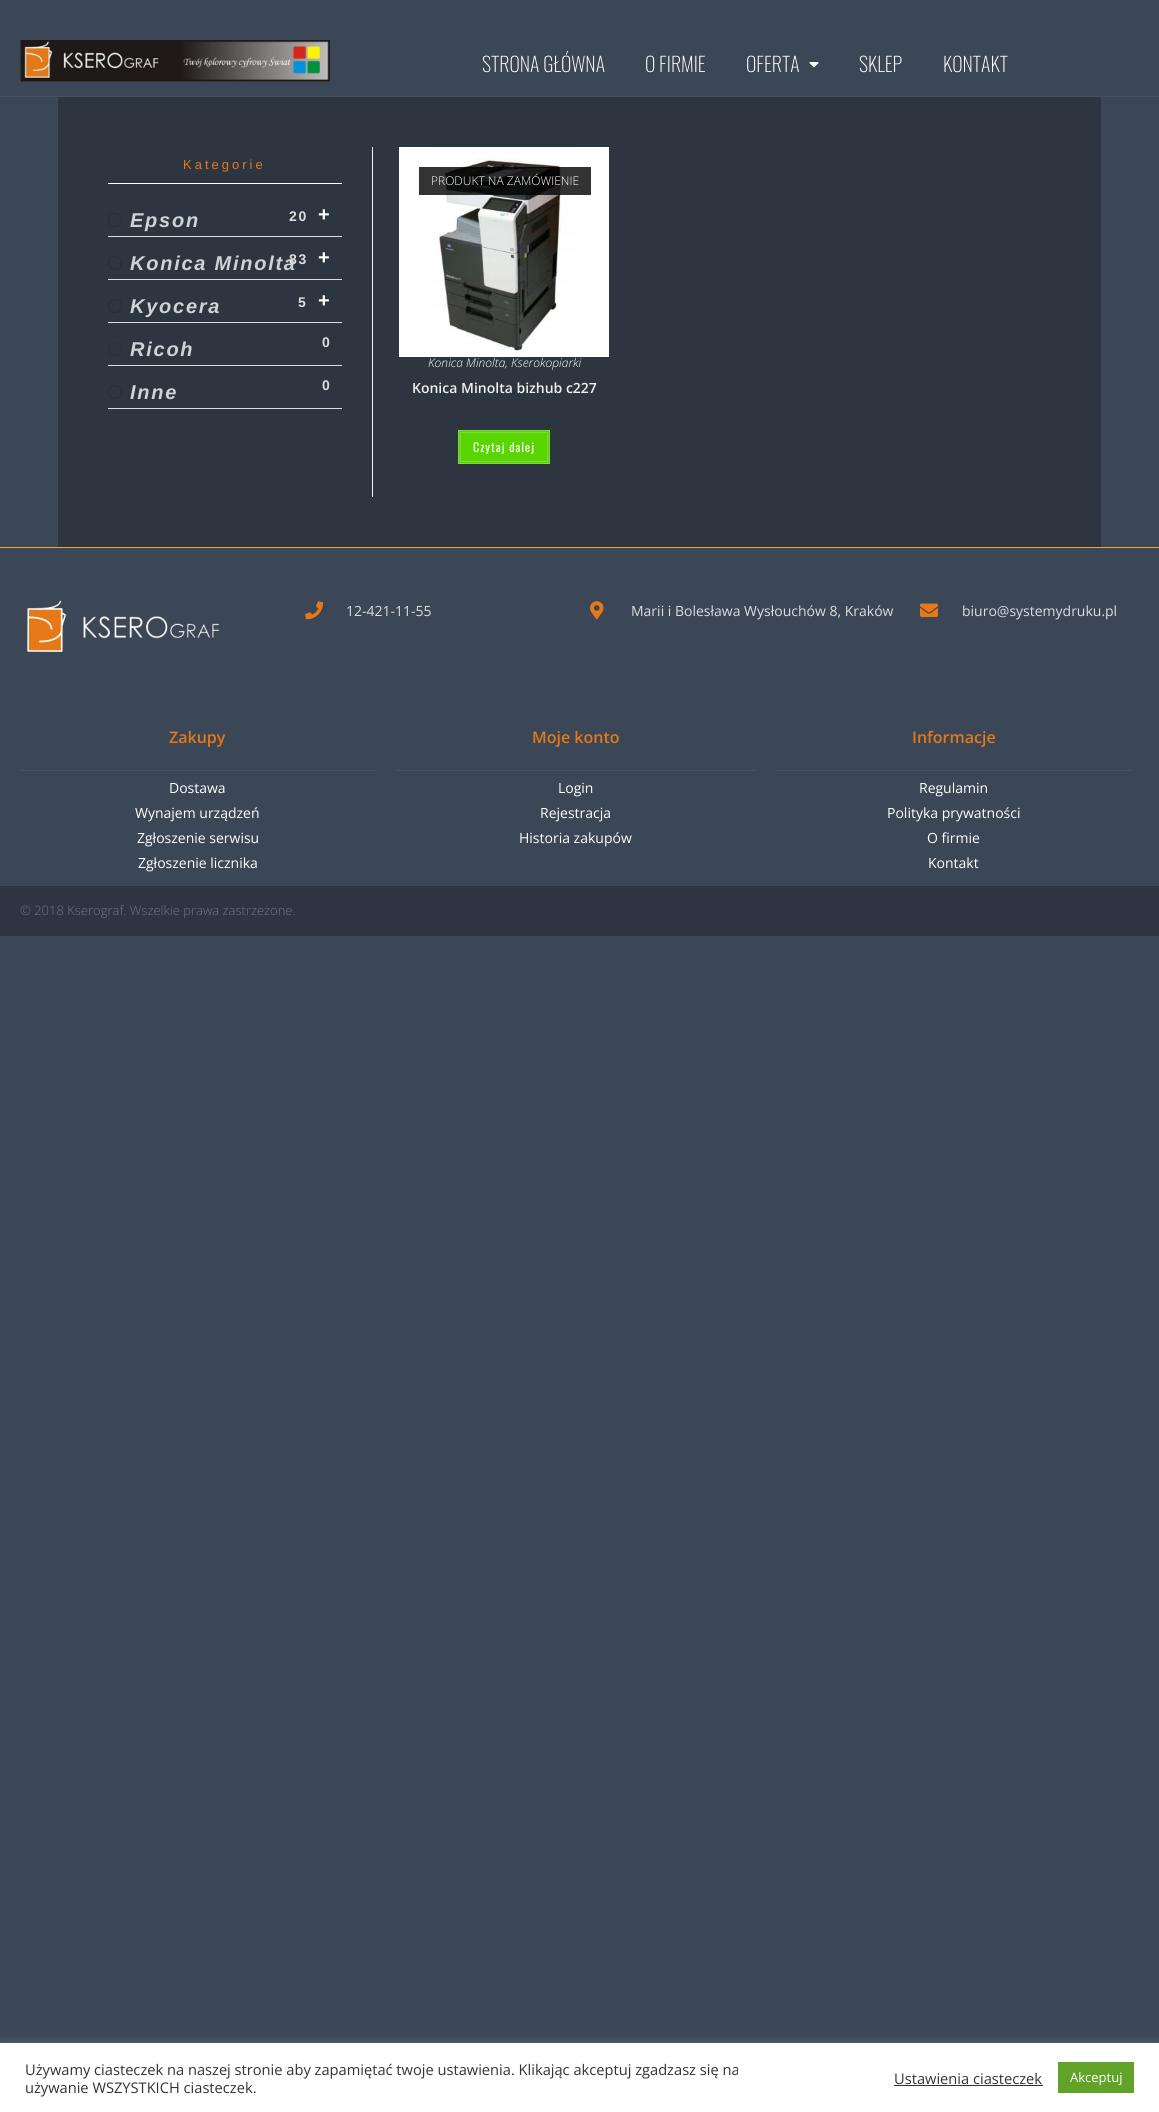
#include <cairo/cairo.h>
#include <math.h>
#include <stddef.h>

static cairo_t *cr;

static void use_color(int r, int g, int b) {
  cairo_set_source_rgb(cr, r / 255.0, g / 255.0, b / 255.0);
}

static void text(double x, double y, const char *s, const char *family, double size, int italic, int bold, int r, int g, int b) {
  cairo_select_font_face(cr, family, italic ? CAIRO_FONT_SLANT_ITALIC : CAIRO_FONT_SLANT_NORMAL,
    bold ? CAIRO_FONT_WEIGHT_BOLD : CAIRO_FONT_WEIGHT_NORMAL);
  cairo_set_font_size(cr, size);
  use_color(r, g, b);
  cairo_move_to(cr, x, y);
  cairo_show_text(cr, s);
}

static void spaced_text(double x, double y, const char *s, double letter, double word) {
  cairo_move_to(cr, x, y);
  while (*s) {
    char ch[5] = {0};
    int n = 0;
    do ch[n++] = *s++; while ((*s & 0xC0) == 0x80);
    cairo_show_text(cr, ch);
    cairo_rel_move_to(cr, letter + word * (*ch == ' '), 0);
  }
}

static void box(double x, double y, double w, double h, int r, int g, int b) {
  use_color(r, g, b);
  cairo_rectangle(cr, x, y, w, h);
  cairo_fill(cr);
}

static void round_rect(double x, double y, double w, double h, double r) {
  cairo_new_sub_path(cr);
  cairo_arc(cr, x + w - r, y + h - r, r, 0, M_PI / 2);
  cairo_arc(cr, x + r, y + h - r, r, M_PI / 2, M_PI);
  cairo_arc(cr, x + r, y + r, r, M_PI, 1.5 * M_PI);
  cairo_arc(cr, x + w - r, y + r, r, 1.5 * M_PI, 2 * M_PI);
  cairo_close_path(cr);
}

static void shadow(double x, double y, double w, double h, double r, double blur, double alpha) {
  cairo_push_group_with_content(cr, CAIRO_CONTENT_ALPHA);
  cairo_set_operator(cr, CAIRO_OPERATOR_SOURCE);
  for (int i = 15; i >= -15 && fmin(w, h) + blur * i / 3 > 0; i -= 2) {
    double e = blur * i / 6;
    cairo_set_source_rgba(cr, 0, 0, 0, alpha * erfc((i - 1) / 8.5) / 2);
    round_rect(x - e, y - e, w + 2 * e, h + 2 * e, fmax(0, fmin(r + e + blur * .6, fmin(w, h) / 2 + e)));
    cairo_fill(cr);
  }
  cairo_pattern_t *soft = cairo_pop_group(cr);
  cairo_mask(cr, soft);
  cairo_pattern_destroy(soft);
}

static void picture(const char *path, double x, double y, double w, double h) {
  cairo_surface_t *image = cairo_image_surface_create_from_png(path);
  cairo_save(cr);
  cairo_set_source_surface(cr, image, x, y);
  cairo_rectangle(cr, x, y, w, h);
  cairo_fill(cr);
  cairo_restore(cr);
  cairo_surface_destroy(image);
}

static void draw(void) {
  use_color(59, 70, 86);
  cairo_paint(cr);
  picture("img_01.png", 20, 40, 310, 42);
  picture("img_02.png", 809, 62, 10, 6);
  box(0, 96, 1159, 1, 66, 83, 99);
  box(58, 97, 1043, 450, 45, 53, 65);
  box(108, 183, 234, 1, 255, 255, 255);
  box(108, 236, 234, 1, 221, 221, 221);
  cairo_arc(cr, 115, 220, 6.5, 0, 2 * M_PI);
  use_color(38, 45, 55);
  cairo_set_line_width(cr, 1);
  cairo_stroke(cr);
  box(108, 279, 234, 1, 221, 221, 221);
  cairo_arc(cr, 115, 263, 6.5, 0, 2 * M_PI);
  use_color(38, 45, 55);
  cairo_stroke(cr);
  cairo_set_source_rgba(cr, 0.329, 0.329, 0.329, 0.05);
  cairo_rectangle(cr, 278, 257, 16, 13);
  cairo_fill(cr);
  box(108, 322, 234, 1, 221, 221, 221);
  cairo_arc(cr, 115, 306, 6.5, 0, 2 * M_PI);
  use_color(38, 45, 55);
  cairo_stroke(cr);
  box(108, 365, 234, 1, 221, 221, 221);
  cairo_arc(cr, 115, 349, 6.5, 0, 2 * M_PI);
  use_color(38, 45, 55);
  cairo_stroke(cr);
  box(108, 408, 234, 1, 221, 221, 221);
  cairo_arc(cr, 115, 392, 6.5, 0, 2 * M_PI);
  use_color(38, 45, 55);
  cairo_stroke(cr);
  box(372, 147, 1, 350, 241, 241, 241);
  picture("img_03.png", 399, 147, 210, 210);
  picture("img_04.png", 421, 147, 166, 210);
  cairo_set_source_rgba(cr, 0, 0, 0, 0.8);
  cairo_rectangle(cr, 419, 167, 172, 28);
  cairo_fill(cr);
  use_color(89, 214, 0);
  cairo_rectangle(cr, 458.5, 430.5, 91, 33);
  cairo_fill_preserve(cr);
  use_color(129, 215, 66);
  cairo_stroke(cr);
  cairo_rectangle(cr, 460.5, 432.5, 87, 29);
  cairo_stroke(cr);
  box(0, 547, 1159, 1, 246, 166, 35);
  picture("img_05.png", 20, 600, 200, 58);
  picture("img_06.png", 305, 601, 18, 19);
  picture("img_07.png", 590, 601, 14, 19);
  picture("img_08.png", 920, 603, 18, 14);
  box(20, 770, 356, 1, 66, 83, 99);
  box(396, 770, 360, 1, 66, 83, 99);
  box(776, 770, 356, 1, 66, 83, 99);
  box(0, 886, 1159, 50, 44, 53, 65);
  use_color(172, 171, 171);
  shadow(0, 2042, 1159, 69, 0, 5, 0.3);
  box(0, 2043, 1159, 69, 255, 255, 255);
  box(894, 2085, 149, 1, 51, 51, 51);
  box(1058, 2062, 76, 31, 97, 162, 41);
  text(482, 72, "STRONA GŁÓWNA", "Oswald ExtraLight", 20, 0, 0, 255, 255, 255);
  text(645, 72, "O FIRMIE", "Oswald ExtraLight", 20, 0, 0, 255, 255, 255);
  text(746, 72, "OFERTA", "Oswald ExtraLight", 20, 0, 0, 255, 255, 255);
  text(859, 72, "SKLEP", "Oswald ExtraLight", 20, 0, 0, 255, 255, 255);
  text(943, 72, "KONTAKT", "Oswald ExtraLight", 20, 0, 0, 255, 255, 255);
  cairo_select_font_face(cr, "Liberation Sans", CAIRO_FONT_SLANT_NORMAL, CAIRO_FONT_WEIGHT_NORMAL);
  cairo_set_font_size(cr, 13);
  use_color(230, 120, 23);
  spaced_text(183, 169, "Kategorie", 3, 0);
  cairo_select_font_face(cr, "Liberation Sans", CAIRO_FONT_SLANT_ITALIC, CAIRO_FONT_WEIGHT_BOLD);
  cairo_set_font_size(cr, 20);
  use_color(207, 210, 214);
  spaced_text(130, 227, "Epson", 1.75, 0);
  cairo_select_font_face(cr, "Liberation Sans", CAIRO_FONT_SLANT_NORMAL, CAIRO_FONT_WEIGHT_BOLD);
  cairo_set_font_size(cr, 14);
  use_color(221, 221, 221);
  spaced_text(289, 221, "20", 1.75, 0);
  cairo_set_font_size(cr, 20);
  use_color(255, 255, 255);
  spaced_text(318, 221, "+", 1.75, 0);
  cairo_select_font_face(cr, "Liberation Sans", CAIRO_FONT_SLANT_ITALIC, CAIRO_FONT_WEIGHT_BOLD);
  use_color(207, 210, 214);
  spaced_text(130, 270, "Konica Minolta", 1.75, 0);
  cairo_select_font_face(cr, "Liberation Sans", CAIRO_FONT_SLANT_NORMAL, CAIRO_FONT_WEIGHT_BOLD);
  cairo_set_font_size(cr, 14);
  use_color(221, 221, 221);
  spaced_text(289, 264, "83", 1.75, 0);
  cairo_set_font_size(cr, 20);
  use_color(255, 255, 255);
  spaced_text(318, 264, "+", 1.75, 0);
  cairo_select_font_face(cr, "Liberation Sans", CAIRO_FONT_SLANT_ITALIC, CAIRO_FONT_WEIGHT_BOLD);
  use_color(207, 210, 214);
  spaced_text(130, 313, "Kyocera", 1.75, 0);
  cairo_select_font_face(cr, "Liberation Sans", CAIRO_FONT_SLANT_NORMAL, CAIRO_FONT_WEIGHT_BOLD);
  cairo_set_font_size(cr, 14);
  use_color(221, 221, 221);
  spaced_text(298, 307, "5", 1.75, 0);
  cairo_set_font_size(cr, 20);
  use_color(255, 255, 255);
  spaced_text(318, 307, "+", 1.75, 0);
  cairo_select_font_face(cr, "Liberation Sans", CAIRO_FONT_SLANT_ITALIC, CAIRO_FONT_WEIGHT_BOLD);
  use_color(207, 210, 214);
  spaced_text(130, 356, "Ricoh", 1.75, 0);
  cairo_select_font_face(cr, "Liberation Sans", CAIRO_FONT_SLANT_NORMAL, CAIRO_FONT_WEIGHT_BOLD);
  cairo_set_font_size(cr, 14);
  use_color(221, 221, 221);
  spaced_text(322, 347, "0", 1.75, 0);
  cairo_select_font_face(cr, "Liberation Sans", CAIRO_FONT_SLANT_ITALIC, CAIRO_FONT_WEIGHT_BOLD);
  cairo_set_font_size(cr, 20);
  use_color(207, 210, 214);
  spaced_text(130, 399, "Inne", 1.75, 0);
  cairo_select_font_face(cr, "Liberation Sans", CAIRO_FONT_SLANT_NORMAL, CAIRO_FONT_WEIGHT_BOLD);
  cairo_set_font_size(cr, 14);
  use_color(221, 221, 221);
  spaced_text(322, 390, "0", 1.75, 0);
  text(431, 185, "PRODUKT NA ZAMÓWIENIE", "Open Sans Light", 12, 0, 0, 255, 255, 255);
  text(428, 367, "Konica Minolta, Kserokopiarki", "Open Sans Light", 12, 1, 0, 255, 255, 255);
  text(412, 393, "Konica Minolta bizhub c227", "Open Sans SemiBold", 14, 0, 0, 239, 239, 239);
  cairo_select_font_face(cr, "Oswald", CAIRO_FONT_SLANT_NORMAL, CAIRO_FONT_WEIGHT_NORMAL);
  cairo_set_font_size(cr, 12);
  use_color(255, 255, 255);
  spaced_text(473, 452, "Czytaj dalej", 1, 0);
  text(346, 616, "12-421-11-55", "Open Sans", 14, 0, 0, 221, 221, 221);
  text(631, 616, "Marii i Bolesława Wysłouchów 8, Kraków", "Open Sans", 14, 0, 0, 221, 221, 221);
  text(962, 616, "biuro@systemydruku.pl", "Open Sans", 14, 0, 0, 221, 221, 221);
  text(169, 743, "Zakupy", "Open Sans SemiBold", 16, 0, 0, 230, 120, 23);
  text(169, 793, "Dostawa", "Open Sans", 14, 0, 0, 255, 255, 255);
  text(135, 818, "Wynajem urządzeń", "Open Sans", 14, 0, 0, 255, 255, 255);
  text(137, 843, "Zgłoszenie serwisu", "Open Sans", 14, 0, 0, 255, 255, 255);
  text(138, 868, "Zgłoszenie licznika", "Open Sans", 14, 0, 0, 255, 255, 255);
  text(532, 743, "Moje konto", "Open Sans SemiBold", 16, 0, 0, 230, 120, 23);
  text(558, 793, "Login", "Open Sans", 14, 0, 0, 255, 255, 255);
  text(540, 818, "Rejestracja", "Open Sans", 14, 0, 0, 255, 255, 255);
  text(519, 843, "Historia zakupów", "Open Sans", 14, 0, 0, 255, 255, 255);
  text(912, 743, "Informacje", "Open Sans SemiBold", 16, 0, 0, 230, 120, 23);
  text(919, 793, "Regulamin", "Open Sans", 14, 0, 0, 255, 255, 255);
  text(887, 818, "Polityka prywatności", "Open Sans", 14, 0, 0, 255, 255, 255);
  text(927, 843, "O firmie", "Open Sans", 14, 0, 0, 255, 255, 255);
  text(928, 868, "Kontakt", "Open Sans", 14, 0, 0, 255, 255, 255);
  text(20, 915, "© 2018 Kserograf. Wszelkie prawa zastrzeżone.", "Open Sans Light", 13, 0, 0, 112, 118, 126);
  text(25, 2075, "Używamy ciasteczek na naszej stronie aby zapamiętać twoje ustawienia. Klikając akceptuj zgadzasz się na", "Open Sans", 14.65, 0, 0, 51, 51, 51);
  text(25, 2093, "używanie WSZYSTKICH ciasteczek.", "Open Sans", 14.65, 0, 0, 51, 51, 51);
  text(894, 2084, "Ustawienia ciasteczek", "Open Sans", 14.65, 0, 0, 51, 51, 51);
  text(1070, 2082, "Akceptuj", "Open Sans", 13, 0, 0, 255, 255, 255);
}

int main(void) {
  cairo_surface_t *surface = cairo_image_surface_create(CAIRO_FORMAT_RGB24, 1159, 2112);
  cr = cairo_create(surface);
  cairo_font_options_t *options = cairo_font_options_create();
  cairo_font_options_set_hint_metrics(options, CAIRO_HINT_METRICS_OFF);
  cairo_font_options_set_hint_style(options, CAIRO_HINT_STYLE_NONE);
  cairo_set_font_options(cr, options);
  cairo_set_miter_limit(cr, 4);
  draw();
  cairo_surface_write_to_png(surface, "out.png");
  cairo_font_options_destroy(options);
  cairo_destroy(cr);
  cairo_surface_destroy(surface);
  return 0;
}
